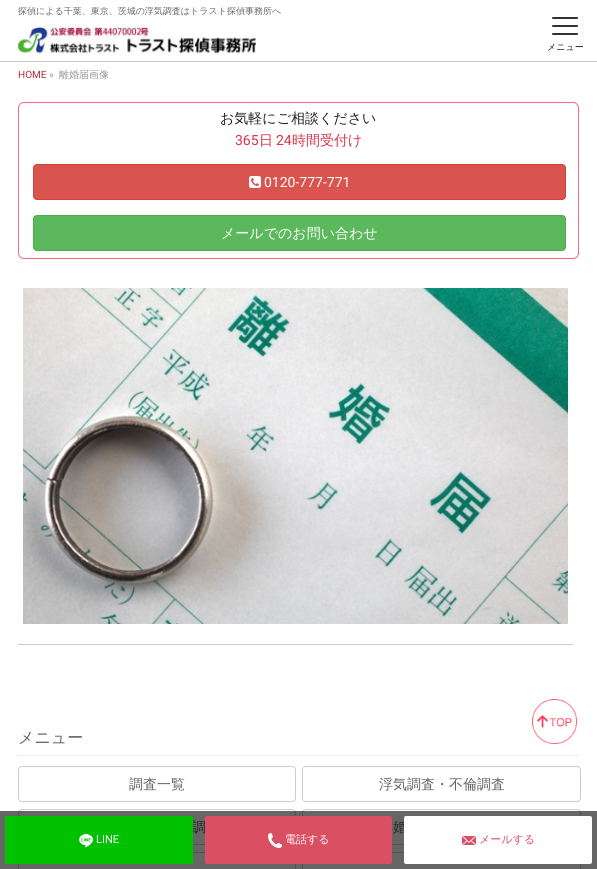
#include <cairo/cairo.h>
#include <math.h>
#include <stddef.h>

static cairo_t *cr;

static void use_color(int r, int g, int b) {
  cairo_set_source_rgb(cr, r / 255.0, g / 255.0, b / 255.0);
}

static void text(double x, double y, const char *s, const char *family, double size, int italic, int bold, int r, int g, int b) {
  cairo_select_font_face(cr, family, italic ? CAIRO_FONT_SLANT_ITALIC : CAIRO_FONT_SLANT_NORMAL,
    bold ? CAIRO_FONT_WEIGHT_BOLD : CAIRO_FONT_WEIGHT_NORMAL);
  cairo_set_font_size(cr, size);
  use_color(r, g, b);
  cairo_move_to(cr, x, y);
  cairo_show_text(cr, s);
}

static void box(double x, double y, double w, double h, int r, int g, int b) {
  use_color(r, g, b);
  cairo_rectangle(cr, x, y, w, h);
  cairo_fill(cr);
}

static void round_rect(double x, double y, double w, double h, double r) {
  cairo_new_sub_path(cr);
  cairo_arc(cr, x + w - r, y + h - r, r, 0, M_PI / 2);
  cairo_arc(cr, x + r, y + h - r, r, M_PI / 2, M_PI);
  cairo_arc(cr, x + r, y + r, r, M_PI, 1.5 * M_PI);
  cairo_arc(cr, x + w - r, y + r, r, 1.5 * M_PI, 2 * M_PI);
  cairo_close_path(cr);
}

static void picture(const char *path, double x, double y, double w, double h) {
  cairo_surface_t *image = cairo_image_surface_create_from_png(path);
  cairo_save(cr);
  cairo_set_source_surface(cr, image, x, y);
  cairo_rectangle(cr, x, y, w, h);
  cairo_fill(cr);
  cairo_restore(cr);
  cairo_surface_destroy(image);
}

static void draw(void) {
  use_color(255, 255, 255);
  cairo_paint(cr);
  box(0, 61, 597, 1, 203, 203, 203);
  picture("img_01.png", 18, 26, 238, 28);
  use_color(51, 51, 51);
  round_rect(552, 17, 26, 2, 1);
  cairo_fill(cr);
  round_rect(552, 25, 26, 2, 1);
  cairo_fill(cr);
  round_rect(552, 33, 26, 2, 1);
  cairo_fill(cr);
  round_rect(18.5, 102.5, 560, 156, 5.5);
  use_color(255, 104, 125);
  cairo_set_line_width(cr, 1);
  cairo_stroke(cr);
  use_color(217, 83, 79);
  round_rect(33.5, 164.5, 532, 35, 3.5);
  cairo_fill_preserve(cr);
  use_color(212, 63, 58);
  cairo_stroke(cr);
  picture("img_02.png", 249, 176, 12, 12);
  use_color(92, 184, 92);
  round_rect(33.5, 215.5, 532, 35, 3.5);
  cairo_fill_preserve(cr);
  use_color(76, 174, 76);
  cairo_stroke(cr);
  picture("img_03.png", 23, 288, 545, 336);
  box(18, 644, 555, 1, 204, 204, 204);
  picture("img_04.png", 532, 699, 45, 45);
  box(18, 755, 561, 1, 238, 238, 238);
  round_rect(18.5, 766.5, 277, 35, 3.5);
  use_color(204, 204, 204);
  cairo_stroke(cr);
  round_rect(302.5, 766.5, 278, 35, 3.5);
  cairo_stroke(cr);
  round_rect(18.5, 809.5, 277, 35, 3.5);
  cairo_stroke(cr);
  round_rect(302.5, 809.5, 278, 35, 3.5);
  cairo_stroke(cr);
  cairo_rectangle(cr, 18.5, 852.5, 277, 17);
  cairo_stroke(cr);
  cairo_rectangle(cr, 302.5, 852.5, 278, 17);
  cairo_stroke(cr);
  cairo_save(cr);
  cairo_rectangle(cr, 0, 7, 597, 9);
  cairo_clip(cr);
  text(18, 14, "探偵による千葉、東京、茨城の浮気調査はトラスト探偵事務所へ", "WenQuanYi Zen Hei Medium", 9, 0, 0, 102, 102, 102);
  cairo_restore(cr);
  text(547, 50, "メニュー", "WenQuanYi Zen Hei Medium", 9, 0, 0, 34, 34, 34);
  text(18, 78, "HOME", "Roboto", 10, 0, 0, 174, 45, 62);
  text(49, 78, "»", "Roboto", 10, 0, 0, 153, 153, 153);
  text(59, 78, "離婚届画像", "WenQuanYi Zen Hei Medium", 10, 0, 0, 153, 153, 153);
  text(220, 123, "お気軽にご相談ください", "WenQuanYi Zen Hei Medium", 14, 0, 0, 34, 34, 34);
  text(235, 145, "365", "Roboto", 14, 0, 0, 215, 51, 73);
  text(259, 145, "日", "WenQuanYi Zen Hei Medium", 14, 0, 0, 215, 51, 73);
  text(276, 145, "24", "Roboto", 14, 0, 0, 215, 51, 73);
  text(292, 145, "時間受付け", "WenQuanYi Zen Hei Medium", 14, 0, 0, 215, 51, 73);
  text(264, 187, "0120-777-771", "Roboto", 14, 0, 0, 255, 255, 255);
  text(221, 238, "メールでのお問い合わせ", "WenQuanYi Zen Hei Medium", 14, 0, 0, 255, 255, 255);
  text(18, 743, "メニュー", "WenQuanYi Zen Hei Medium", 16, 0, 0, 102, 102, 102);
  text(129, 789, "調査一覧", "WenQuanYi Zen Hei Medium", 14, 0, 0, 102, 102, 102);
  text(379, 789, "浮気調査・不倫調査", "WenQuanYi Zen Hei Medium", 14, 0, 0, 102, 102, 102);
  text(192, 832, "調", "WenQuanYi Zen Hei Medium", 14, 0, 0, 102, 102, 102);
  text(393, 832, "婚", "WenQuanYi Zen Hei Medium", 14, 0, 0, 102, 102, 102);
  cairo_set_source_rgba(cr, 0, 0, 0, 0.6);
  cairo_rectangle(cr, 0, 811, 597, 58);
  cairo_fill(cr);
  use_color(0, 194, 0);
  round_rect(5, 816, 188, 48, 2);
  cairo_fill(cr);
  picture("img_05.png", 79, 833, 14, 15);
  text(96, 843, "LINE", "Roboto", 11, 0, 0, 255, 255, 255);
  use_color(219, 79, 99);
  round_rect(205, 816, 187, 48, 2);
  cairo_fill(cr);
  picture("img_06.png", 268, 833, 14, 15);
  text(285, 843, "電話する", "WenQuanYi Zen Hei Medium", 11, 0, 0, 255, 255, 255);
  round_rect(404, 816, 188, 48, 2);
  cairo_fill(cr);
  picture("img_07.png", 462, 836, 14, 9);
  text(479, 843, "メールする", "WenQuanYi Zen Hei Medium", 11, 0, 0, 219, 79, 99);
}

int main(void) {
  cairo_surface_t *surface = cairo_image_surface_create(CAIRO_FORMAT_RGB24, 597, 869);
  cr = cairo_create(surface);
  cairo_font_options_t *options = cairo_font_options_create();
  cairo_font_options_set_hint_metrics(options, CAIRO_HINT_METRICS_OFF);
  cairo_font_options_set_hint_style(options, CAIRO_HINT_STYLE_NONE);
  cairo_set_font_options(cr, options);
  cairo_set_miter_limit(cr, 4);
  draw();
  cairo_surface_write_to_png(surface, "out.png");
  cairo_font_options_destroy(options);
  cairo_destroy(cr);
  cairo_surface_destroy(surface);
  return 0;
}
